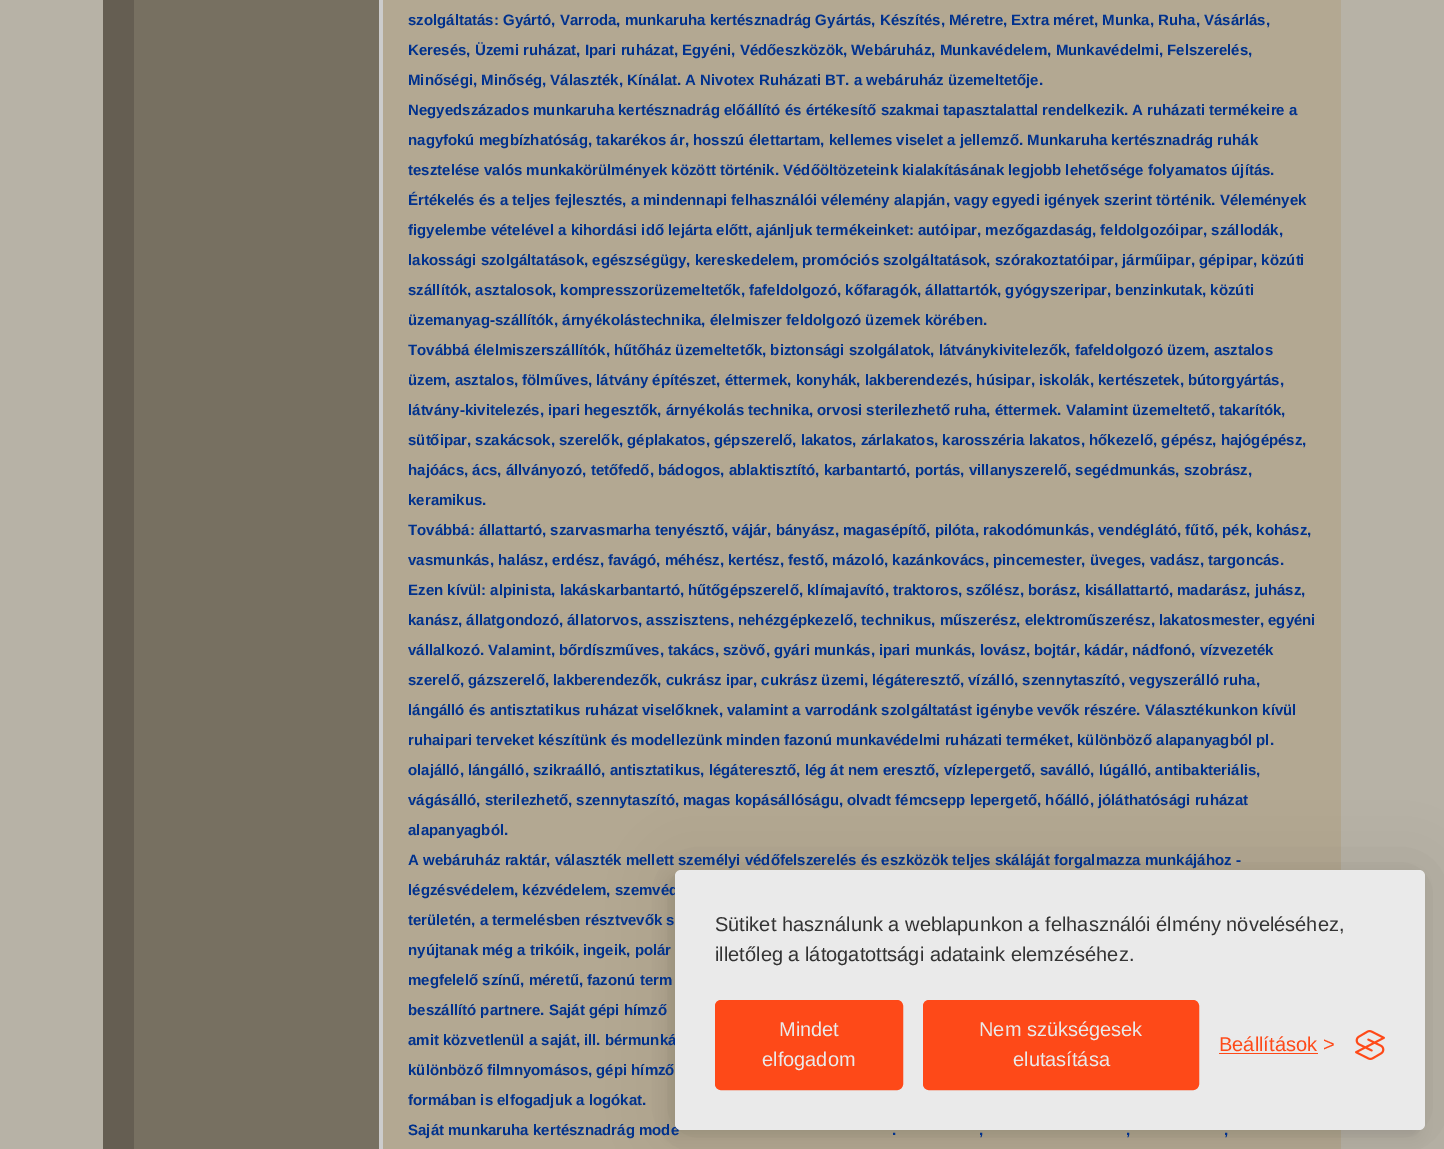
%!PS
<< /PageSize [1444 1149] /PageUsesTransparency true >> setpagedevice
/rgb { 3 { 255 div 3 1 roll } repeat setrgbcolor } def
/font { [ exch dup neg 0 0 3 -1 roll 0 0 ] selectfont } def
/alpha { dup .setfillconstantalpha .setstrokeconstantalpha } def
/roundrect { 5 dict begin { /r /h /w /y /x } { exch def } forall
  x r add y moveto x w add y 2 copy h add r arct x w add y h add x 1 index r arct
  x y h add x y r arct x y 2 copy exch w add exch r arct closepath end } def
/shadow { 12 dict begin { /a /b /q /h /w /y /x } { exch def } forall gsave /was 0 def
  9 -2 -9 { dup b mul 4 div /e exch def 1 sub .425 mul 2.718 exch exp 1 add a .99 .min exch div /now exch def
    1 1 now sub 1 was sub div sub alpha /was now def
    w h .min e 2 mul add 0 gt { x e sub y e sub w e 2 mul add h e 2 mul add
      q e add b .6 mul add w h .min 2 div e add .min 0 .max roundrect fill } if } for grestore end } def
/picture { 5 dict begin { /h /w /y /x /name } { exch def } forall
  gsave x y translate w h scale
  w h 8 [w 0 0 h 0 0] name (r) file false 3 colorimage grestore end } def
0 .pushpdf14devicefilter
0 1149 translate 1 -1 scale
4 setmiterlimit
183 178 166 rgb
0 0 1444 1149 rectfill
[
  [379 0 4 1149 204 204 204]
  [134 0 245 1149 119 112 97]
  [103 0 31 1149 101 94 82]
  [383 0 958 1149 179 168 146]
] { aload pop rgb rectfill } forall
0 0 0 rgb
675 870 750 260 6 31 0.1 shadow
669 876 750 260 6 6 0.07 shadow
/LiberationSans-Bold 15 font
0 49 141 rgb
[
  [(szolgáltatás: Gyártó, Varroda, munkaruha kertésznadrág Gyártás, Készítés, Méretre, Extra méret, Munka, Ruha, Vásárlás,) 408 25]
  [(Keresés, Üzemi ruházat, Ipari ruházat, Egyéni, Védőeszközök, Webáruház, Munkavédelem, Munkavédelmi, Felszerelés,) 408 55]
  [(Minőségi, Minőség, Választék, Kínálat. A Nivotex Ruházati BT. a webáruház üzemeltetője.) 408 85]
  [(Negyedszázados munkaruha kertésznadrág előállító és értékesítő szakmai tapasztalattal rendelkezik. A ruházati termékeire a) 408 115]
  [(nagyfokú megbízhatóság, takarékos ár, hosszú élettartam, kellemes viselet a jellemző. Munkaruha kertésznadrág ruhák) 408 145]
  [(tesztelése valós munkakörülmények között történik. Védőöltözeteink kialakításának legjobb lehetősége folyamatos újítás.) 408 175]
  [(Értékelés és a teljes fejlesztés, a mindennapi felhasználói vélemény alapján, vagy egyedi igények szerint történik. Vélemények) 408 205]
  [(figyelembe vételével a kihordási idő lejárta előtt, ajánljuk termékeinket: autóipar, mezőgazdaság, feldolgozóipar, szállodák,) 408 235]
  [(lakossági szolgáltatások, egészségügy, kereskedelem, promóciós szolgáltatások, szórakoztatóipar, járműipar, gépipar, közúti) 408 265]
  [(szállítók, asztalosok, kompresszorüzemeltetők, fafeldolgozó, kőfaragók, állattartók, gyógyszeripar, benzinkutak, közúti) 408 295]
  [(üzemanyag-szállítók, árnyékolástechnika, élelmiszer feldolgozó üzemek körében.) 408 325]
  [(Továbbá élelmiszerszállítók, hűtőház üzemeltetők, biztonsági szolgálatok, látványkivitelezők, fafeldolgozó üzem, asztalos) 408 355]
  [(üzem, asztalos, fölműves, látvány építészet, éttermek, konyhák, lakberendezés, húsipar, iskolák, kertészetek, bútorgyártás,) 408 385]
  [(látvány-kivitelezés, ipari hegesztők, árnyékolás technika, orvosi sterilezhető ruha, éttermek. Valamint üzemeltető, takarítók,) 408 415]
  [(sütőipar, szakácsok, szerelők, géplakatos, gépszerelő, lakatos, zárlakatos, karosszéria lakatos, hőkezelő, gépész, hajógépész,) 408 445]
  [(hajóács, ács, állványozó, tetőfedő, bádogos, ablaktisztító, karbantartó, portás, villanyszerelő, segédmunkás, szobrász,) 408 475]
  [(keramikus.) 408 505]
  [(Továbbá: állattartó, szarvasmarha tenyésztő, vájár, bányász, magasépítő, pilóta, rakodómunkás, vendéglátó, fűtő, pék, kohász,) 408 535]
  [(vasmunkás, halász, erdész, favágó, méhész, kertész, festő, mázoló, kazánkovács, pincemester, üveges, vadász, targoncás.) 408 565]
  [(Ezen kívül: alpinista, lakáskarbantartó, hűtőgépszerelő, klímajavító, traktoros, szőlész, borász, kisállattartó, madarász, juhász,) 408 595]
  [(kanász, állatgondozó, állatorvos, asszisztens, nehézgépkezelő, technikus, műszerész, elektroműszerész, lakatosmester, egyéni) 408 625]
  [(vállalkozó. Valamint, bőrdíszműves, takács, szövő, gyári munkás, ipari munkás, lovász, bojtár, kádár, nádfonó, vízvezeték) 408 655]
  [(szerelő, gázszerelő, lakberendezők, cukrász ipar, cukrász üzemi, légáteresztő, vízálló, szennytaszító, vegyszerálló ruha,) 408 685]
  [(lángálló és antisztatikus ruházat viselőknek, valamint a varrodánk szolgáltatást igénybe vevők részére. Választékunkon kívül) 408 715]
  [(ruhaipari terveket készítünk és modellezünk minden fazonú munkavédelmi ruházati terméket, különböző alapanyagból pl.) 408 745]
  [(olajálló, lángálló, szikraálló, antisztatikus, légáteresztő, lég át nem eresztő, vízlepergető, saválló, lúgálló, antibakteriális,) 408 775]
  [(vágásálló, sterilezhető, szennytaszító, magas kopásállóságu, olvadt fémcsepp lepergető, hőálló, jóláthatósági ruházat) 408 805]
  [(alapanyagból.) 408 835]
  [(A webáruház raktár, választék mellett személyi védőfelszerelés és eszközök teljes skáláját forgalmazza munkájához -) 408 865]
  [(légzésvédelem, kézvédelem, szemvéd) 408 895]
  [(területén, a termelésben résztvevők s) 408 925]
  [(nyújtanak még a trikóik, ingeik, polár) 408 955]
  [(megfelelő színű, méretű, fazonú term) 408 985]
  [(beszállító partnere. Saját gépi hímző) 408 1015]
  [(amit közvetlenül a saját, ill. bérmunká) 408 1045]
  [(különböző filmnyomásos, gépi hímző) 408 1075]
  [(formában is elfogadjuk a logókat.) 408 1105]
  [(Saját munkaruha kertésznadrág mode) 408 1135]
  [(.) 892 1135]
  [(,) 979 1135]
  [(,) 1126 1135]
  [(,) 1224 1135]
] { aload pop moveto show } forall
234 234 234 rgb
675 870 750 260 6 roundrect fill
/LiberationSans-Regular 20 font
51 51 51 rgb
715 931 moveto (Sütiket használunk a weblapunkon a felhasználói élmény növeléséhez,) show
715 961 moveto (illetőleg a látogatottsági adataink elemzéséhez.) show
254 73 24 rgb
716.5 1001.5 185 87 4.5 roundrect gsave fill grestore
3 setlinewidth
stroke
234 234 234 rgb
779 1036 moveto (Mindet) show
762 1066 moveto (elfogadom) show
254 73 24 rgb
924.5 1001.5 273 87 4.5 roundrect gsave fill grestore
stroke
234 234 234 rgb
979 1036 moveto (Nem szükségesek) show
1013 1066 moveto (elutasítása) show
254 73 24 rgb
1219 1051 moveto (Beállítások) show
1219 1053 99 1 rectfill
1323 1051 moveto (>) show
(img/1.rgb) 1355 1030 30 30 picture
.poppdf14devicefilter showpage
